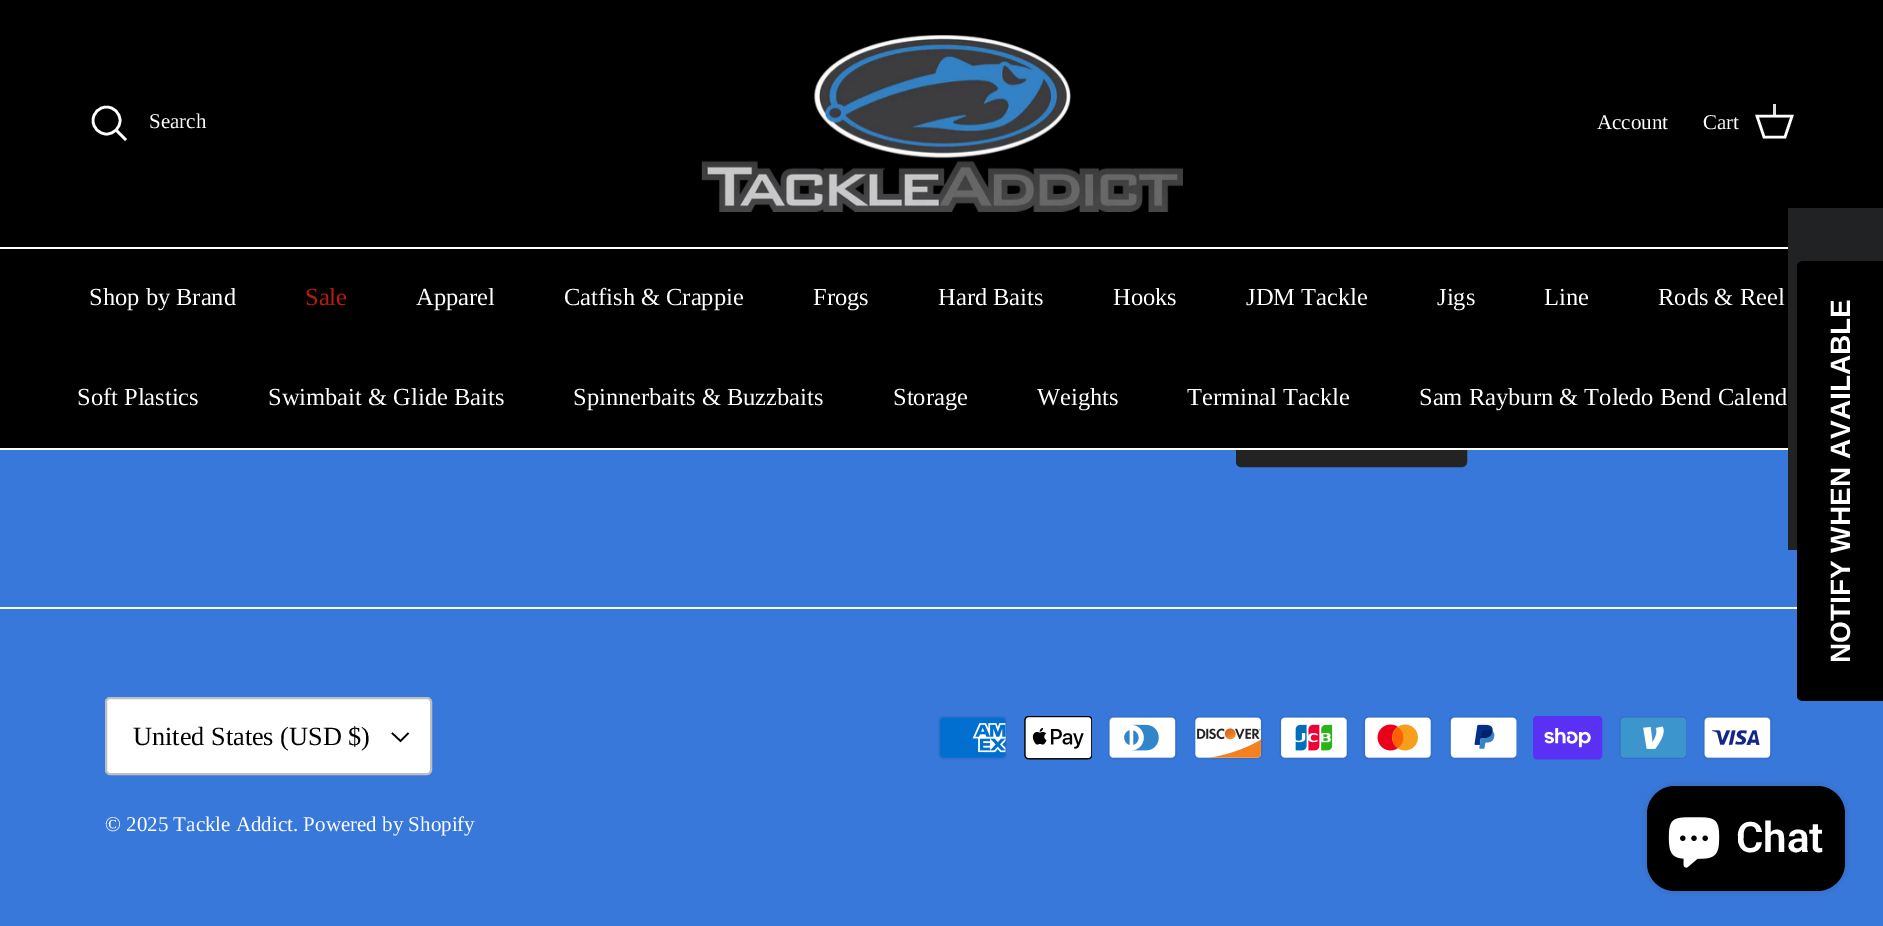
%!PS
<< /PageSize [1883 926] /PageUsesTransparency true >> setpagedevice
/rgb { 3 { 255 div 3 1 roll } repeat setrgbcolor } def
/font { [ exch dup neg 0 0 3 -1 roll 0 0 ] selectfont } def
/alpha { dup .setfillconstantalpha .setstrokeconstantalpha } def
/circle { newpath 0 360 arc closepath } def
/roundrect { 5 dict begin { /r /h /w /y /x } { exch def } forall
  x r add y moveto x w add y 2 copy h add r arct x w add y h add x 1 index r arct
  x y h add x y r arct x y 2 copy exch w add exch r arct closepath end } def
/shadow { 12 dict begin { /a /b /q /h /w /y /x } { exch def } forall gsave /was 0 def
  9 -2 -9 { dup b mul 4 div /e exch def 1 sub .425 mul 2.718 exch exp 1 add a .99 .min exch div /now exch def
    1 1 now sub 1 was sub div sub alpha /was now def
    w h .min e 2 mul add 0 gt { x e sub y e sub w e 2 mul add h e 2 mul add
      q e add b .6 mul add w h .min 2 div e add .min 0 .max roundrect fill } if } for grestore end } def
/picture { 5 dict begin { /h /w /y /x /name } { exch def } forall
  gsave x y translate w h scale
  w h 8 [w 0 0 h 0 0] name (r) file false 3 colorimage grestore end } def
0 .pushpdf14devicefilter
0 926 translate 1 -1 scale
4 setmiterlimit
57 120 219 rgb
0 0 1883 926 rectfill
0 0 0 rgb
0 0 1883 247 rectfill
255 255 255 rgb
0 247 1788 2 rectfill
2.6 setlinewidth
106.5 120.5 13.5 circle stroke
2 setlinecap
117 131 moveto 125 139 lineto stroke
(img/1.rgb) 701 35 482 177 picture
0 setlinecap
1757 116 moveto 1792 116 lineto 1785 137 lineto 1764 137 lineto closepath stroke
0.87 alpha
1773 104 3 13 rectfill
1 alpha
35 35 35 rgb
1237 388 229 78 4 roundrect gsave fill grestore
2 setlinewidth
stroke
[
  [0 448 1788 2 255 255 255]
  [0 249 1788 199 0 0 0]
  [1788 208 95 342 32 34 35]
] { aload pop rgb rectfill } forall
0 0 0 rgb
1799 696 moveto 1799 266 lineto 1799 264 1801 262 1803 262 curveto 1883 262 lineto 1883 699 lineto 1803 699 lineto 1801 699 1799 698 1799 696 curveto closepath fill
1797 696 moveto 1797 266 lineto 1797 263 1800 261 1803 261 curveto 1883 261 lineto 1883 701 lineto 1803 701 lineto 1800 701 1797 699 1797 696 curveto closepath 1799 696 moveto 1799 266 lineto 1799 264 1801 262 1803 262 curveto 1883 262 lineto 1883 699 lineto 1803 699 lineto 1801 699 1799 698 1799 696 curveto closepath eofill
255 255 255 rgb
0 607 1797 2 rectfill
106 698 325 76 4 roundrect gsave fill grestore
191 191 191 rgb
stroke
0 0 0 rgb
1.6 setlinewidth
408.5 733 moveto 400.5 741 lineto 392 733 lineto stroke
(img/2.rgb) 938 716 69 44 picture
(img/3.rgb) 1024 716 68 44 picture
(img/4.rgb) 1108 716 69 44 picture
(img/5.rgb) 1194 716 69 44 picture
(img/6.rgb) 1279 716 69 44 picture
(img/7.rgb) 1363 716 70 44 picture
(img/8.rgb) 1449 716 68 44 picture
(img/9.rgb) 1533 716 70 44 picture
(img/10.rgb) 1619 716 68 43 picture
(img/11.rgb) 1703 716 69 44 picture
1647 786 198 105 28 4.5 0.15 shadow
1647 786 198 105 28 roundrect fill
(img/12.rgb) 1668 817 52 51 picture
/LiberationSerif-Regular 21 font
255 255 255 rgb
[
  [(Search) 149 128]
  [(Account) 1597 129]
  [(Cart) 1703 129]
] { aload pop moveto show } forall
/LiberationSerif-Regular 24.5 font
89 305 moveto (Shop by Brand) show
182 29 15 rgb
305 305 moveto (Sale) show
255 255 255 rgb
[
  [(Apparel) 416 305]
  [(Catfish & Crappie) 564 305]
  [(Frogs) 813 305]
  [(Hard Baits) 938 305]
  [(Hooks) 1113 305]
  [(JDM Tackle) 1246 305]
  [(Jigs) 1437 305]
  [(Line) 1544 305]
  [(Rods & Reel) 1658 305]
  [(Soft Plastics) 77 405]
  [(Swimbait & Glide Baits) 268 405]
  [(Spinnerbaits & Buzzbaits) 573 405]
  [(Storage) 893 405]
  [(Weights) 1037 405]
  [(Terminal Tackle) 1187 405]
  [(Sam Rayburn & Toledo Bend Calend) 1419 405]
] { aload pop moveto show } forall
/LiberationSans-Bold 28 font
gsave 1850 663 translate -90 rotate 0 0 moveto (NOTIFY WHEN AVAILABLE) show grestore
/LiberationSerif-Regular 26.25 font
0 0 0 rgb
133 745 moveto (United States \(USD $\)) show
/LiberationSerif-Regular 21 font
255 255 255 rgb
105 831 moveto (© 2025 Tackle Addict. Powered by Shopify) show
/Roboto-SemiBold 42 font
1736 852 moveto (Chat) show
.poppdf14devicefilter showpage
